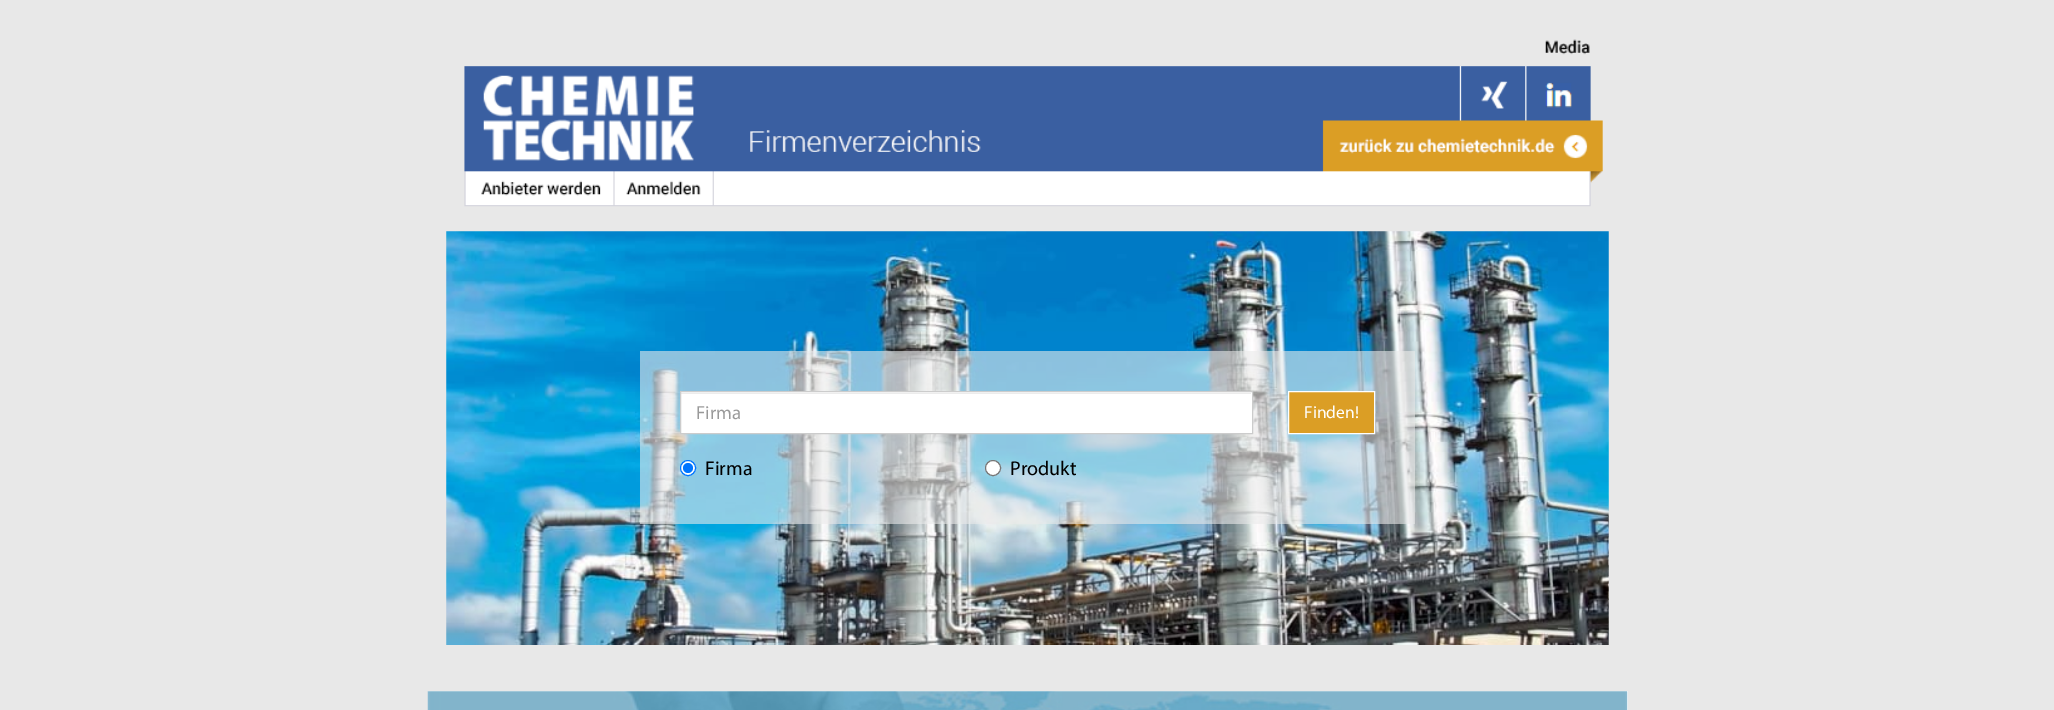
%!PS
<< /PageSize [2054 710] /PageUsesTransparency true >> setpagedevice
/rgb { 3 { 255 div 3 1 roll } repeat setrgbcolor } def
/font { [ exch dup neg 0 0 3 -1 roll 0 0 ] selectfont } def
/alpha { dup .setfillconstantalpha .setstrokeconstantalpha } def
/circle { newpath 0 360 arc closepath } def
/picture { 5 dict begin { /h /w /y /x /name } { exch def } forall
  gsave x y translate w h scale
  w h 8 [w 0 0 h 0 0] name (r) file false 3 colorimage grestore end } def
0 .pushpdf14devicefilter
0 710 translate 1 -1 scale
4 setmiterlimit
232 232 232 rgb
0 0 2054 710 rectfill
(img/1.rgb) 464 39 1139 168 picture
(img/2.rgb) 446 231 1163 414 picture
0.6 alpha
[
  [640 351 775 173 234 234 234]
] { aload pop rgb rectfill } forall
1 alpha
[
  [681 392 571 41 255 255 255]
  [681 393 570 1 236 236 236]
] { aload pop rgb rectfill } forall
204 204 204 rgb
680.5 391.5 572 42 rectstroke
219 158 37 rgb
1288.5 391.5 moveto 1374.5 391.5 lineto 1374.5 433.5 lineto 1288.5 433.5 lineto closepath gsave fill grestore
255 255 255 rgb
stroke
688 468 7.5 circle gsave fill grestore
0 117 255 rgb
stroke
688 468 5 circle fill
255 255 255 rgb
993 468 7.5 circle gsave fill grestore
118 118 118 rgb
stroke
255 255 255 rgb
428 691 1200 19 rectfill
(img/3.rgb) 427 691 1201 19 picture
/Myriad-Regular 19 font
153 153 153 rgb
696 419 moveto (Firma) show
/Myriad-Regular 17.5 font
255 255 255 rgb
1304 418 moveto (Finden!) show
/Myriad-Regular 20 font
0 0 0 rgb
705 475 moveto (Firma) show
1010 475 moveto (Produkt) show
.poppdf14devicefilter showpage
